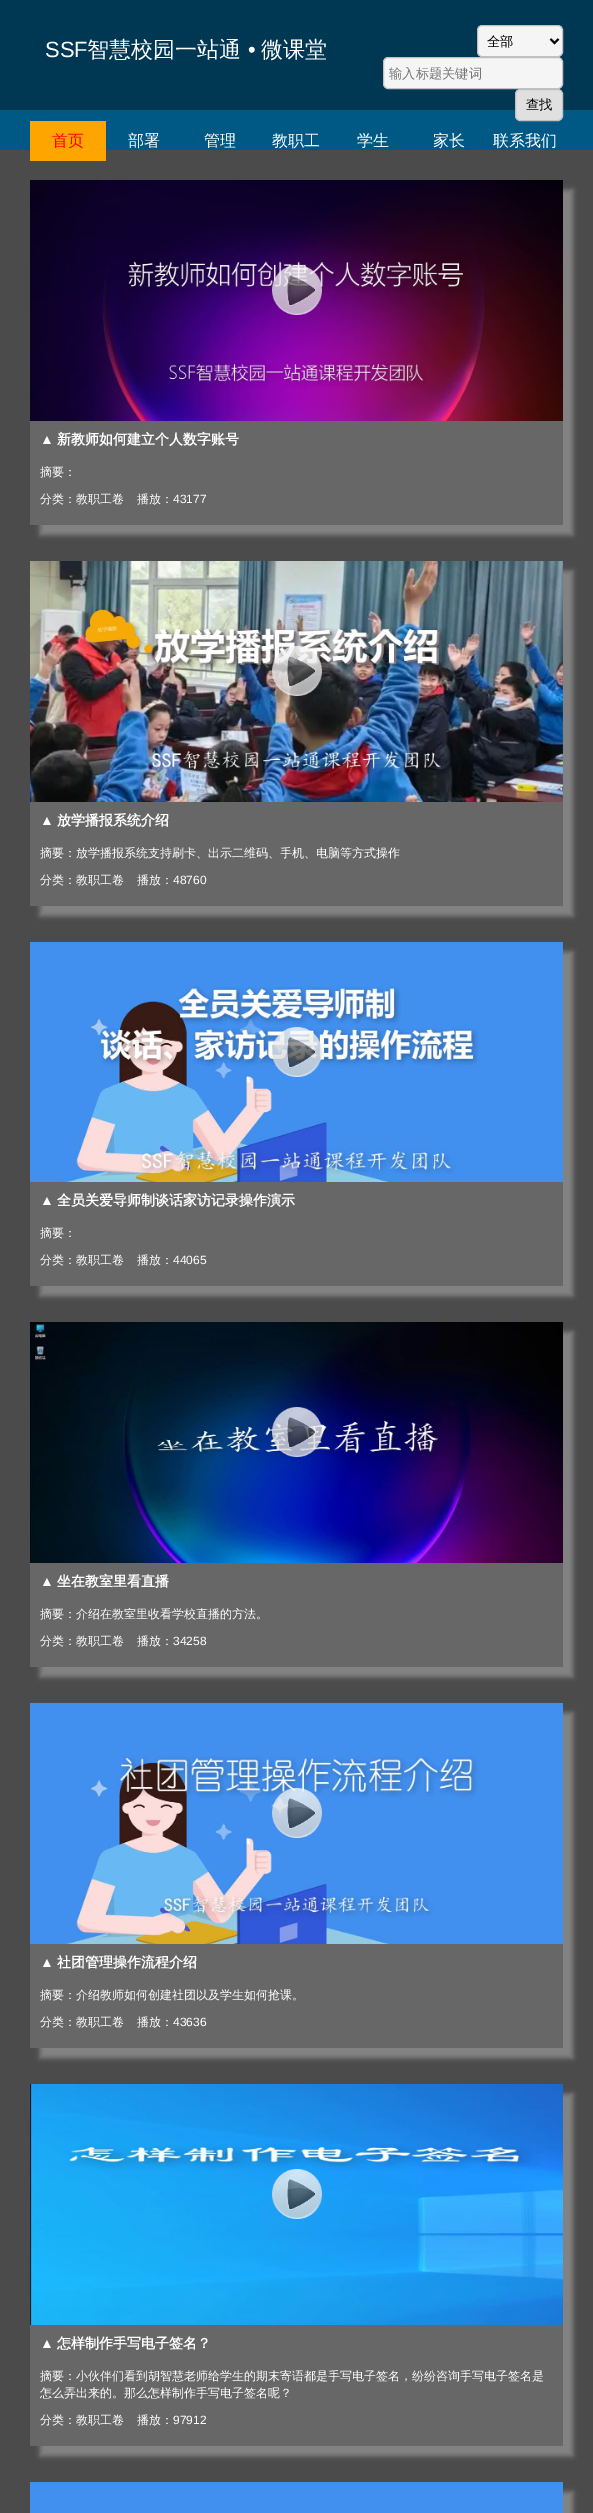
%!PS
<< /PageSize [593 2513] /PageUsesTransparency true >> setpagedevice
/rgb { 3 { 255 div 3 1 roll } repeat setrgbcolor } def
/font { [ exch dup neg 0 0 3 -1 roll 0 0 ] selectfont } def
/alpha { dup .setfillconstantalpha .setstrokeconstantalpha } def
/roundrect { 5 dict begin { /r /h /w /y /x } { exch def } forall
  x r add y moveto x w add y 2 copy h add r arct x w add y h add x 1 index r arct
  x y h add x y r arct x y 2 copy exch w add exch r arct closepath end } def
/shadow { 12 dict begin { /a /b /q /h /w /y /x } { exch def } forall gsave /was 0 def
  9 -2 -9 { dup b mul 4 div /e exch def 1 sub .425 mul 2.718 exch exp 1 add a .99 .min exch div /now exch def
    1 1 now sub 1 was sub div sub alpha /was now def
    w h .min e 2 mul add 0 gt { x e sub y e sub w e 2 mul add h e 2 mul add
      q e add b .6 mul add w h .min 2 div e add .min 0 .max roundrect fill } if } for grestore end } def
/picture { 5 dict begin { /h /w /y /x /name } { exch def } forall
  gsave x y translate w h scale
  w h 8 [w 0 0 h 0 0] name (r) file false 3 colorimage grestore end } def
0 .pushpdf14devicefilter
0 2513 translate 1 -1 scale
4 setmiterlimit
75 75 75 rgb
0 0 593 2513 rectfill
0 56 83 rgb
0 0 593 110 rectfill
245 245 245 rgb
477.5 25.5 85 31 4.5 roundrect gsave fill grestore
192 192 192 rgb
stroke
0 0 0 rgb
2 setlinewidth
550.5 39 moveto 554.5 43 lineto 558.5 39 lineto stroke
245 245 245 rgb
383.5 57.5 179 31 4.5 roundrect gsave fill grestore
192 192 192 rgb
1 setlinewidth
stroke
0 89 132 rgb
0 110 593 40 rectfill
224 224 224 rgb
515.5 89.5 47 31 4.5 roundrect gsave fill grestore
192 192 192 rgb
stroke
255 165 0 rgb
30 121 76 40 rectfill
132 132 132 rgb
40 190 533 345 0 2.5 1 shadow
103 103 103 rgb
30 421 533 104 rectfill
(img/1.rgb) 30 180 533 241 picture
(img/2.rgb) 272 265 50 50 picture
132 132 132 rgb
40 571 533 345 0 2.5 1 shadow
103 103 103 rgb
30 802 533 104 rectfill
(img/3.rgb) 30 561 533 241 picture
(img/4.rgb) 272 646 50 50 picture
132 132 132 rgb
40 952 533 344 0 2.5 1 shadow
103 103 103 rgb
30 1182 533 104 rectfill
(img/5.rgb) 30 942 533 240 picture
(img/6.rgb) 272 1027 50 50 picture
132 132 132 rgb
40 1332 533 345 0 2.5 1 shadow
103 103 103 rgb
30 1563 533 104 rectfill
(img/7.rgb) 30 1322 533 241 picture
(img/8.rgb) 272 1407 50 50 picture
132 132 132 rgb
40 1713 533 345 0 2.5 1 shadow
103 103 103 rgb
30 1944 533 104 rectfill
(img/9.rgb) 30 1703 533 241 picture
(img/10.rgb) 272 1788 50 50 picture
132 132 132 rgb
40 2094 533 362 0 2.5 1 shadow
103 103 103 rgb
30 2325 533 121 rectfill
(img/11.rgb) 30 2084 533 241 picture
(img/12.rgb) 272 2169 50 50 picture
132 132 132 rgb
40 2492 533 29 0 2.5 1 shadow
65 144 239 rgb
30 2482 533 31 rectfill
/LiberationSans-Regular 22 font
255 255 255 rgb
45 57 moveto (SSF) show
/WenQuanYiZenHei-Medium 22 font
87 57 moveto (智慧校园一站通) show
/LiberationSans-Regular 22 font
248 57 moveto (•) show
/WenQuanYiZenHei-Medium 22 font
261 57 moveto (微课堂) show
/WenQuanYiZenHei-Medium 13.25 font
0 0 0 rgb
487 46 moveto (全部) show
117 117 117 rgb
389 78 moveto (输入标题关键词) show
0 0 0 rgb
526 109 moveto (查找) show
/WenQuanYiZenHei-Medium 16 font
255 0 0 rgb
52 146 moveto (首页) show
255 255 255 rgb
[
  [(部署) 128 146]
  [(管理) 204 146]
  [(教职工) 272 146]
  [(学生) 357 146]
  [(家长) 433 146]
  [(联系我们) 493 146]
] { aload pop moveto show } forall
/LiberationSans-Bold 14 font
40 444 moveto (▲) show
/WenQuanYiZenHei-Bold 14 font
57 444 moveto (新教师如何建立个人数字账号) show
/WenQuanYiZenHei-Medium 12 font
[
  [(摘要：) 40 476]
  [(分类：教职工卷) 40 503]
  [(播放：) 137 503]
] { aload pop moveto show } forall
/LiberationSans-Regular 12 font
173 503 moveto (43177) show
/LiberationSans-Bold 14 font
40 825 moveto (▲) show
/WenQuanYiZenHei-Bold 14 font
57 825 moveto (放学播报系统介绍) show
/WenQuanYiZenHei-Medium 12 font
[
  [(摘要：放学播报系统支持刷卡、出示二维码、手机、电脑等方式操作) 40 857]
  [(分类：教职工卷) 40 884]
  [(播放：) 137 884]
] { aload pop moveto show } forall
/LiberationSans-Regular 12 font
173 884 moveto (48760) show
/LiberationSans-Bold 14 font
40 1205 moveto (▲) show
/WenQuanYiZenHei-Bold 14 font
57 1205 moveto (全员关爱导师制谈话家访记录操作演示) show
/WenQuanYiZenHei-Medium 12 font
[
  [(摘要：) 40 1237]
  [(分类：教职工卷) 40 1264]
  [(播放：) 137 1264]
] { aload pop moveto show } forall
/LiberationSans-Regular 12 font
173 1264 moveto (44065) show
/LiberationSans-Bold 14 font
40 1586 moveto (▲) show
/WenQuanYiZenHei-Bold 14 font
57 1586 moveto (坐在教室里看直播) show
/WenQuanYiZenHei-Medium 12 font
[
  [(摘要：介绍在教室里收看学校直播的方法。) 40 1618]
  [(分类：教职工卷) 40 1645]
  [(播放：) 137 1645]
] { aload pop moveto show } forall
/LiberationSans-Regular 12 font
173 1645 moveto (34258) show
/LiberationSans-Bold 14 font
40 1967 moveto (▲) show
/WenQuanYiZenHei-Bold 14 font
57 1967 moveto (社团管理操作流程介绍) show
/WenQuanYiZenHei-Medium 12 font
[
  [(摘要：介绍教师如何创建社团以及学生如何抢课。) 40 1999]
  [(分类：教职工卷) 40 2026]
  [(播放：) 137 2026]
] { aload pop moveto show } forall
/LiberationSans-Regular 12 font
173 2026 moveto (43636) show
/LiberationSans-Bold 14 font
40 2348 moveto (▲) show
/WenQuanYiZenHei-Bold 14 font
57 2348 moveto (怎样制作手写电子签名？) show
/WenQuanYiZenHei-Medium 12 font
[
  [(摘要：小伙伴们看到胡智慧老师给学生的期末寄语都是手写电子签名，纷纷咨询手写电子签名是) 40 2380]
  [(怎么弄出来的。那么怎样制作手写电子签名呢？) 40 2397]
  [(分类：教职工卷) 40 2424]
  [(播放：) 137 2424]
] { aload pop moveto show } forall
/LiberationSans-Regular 12 font
173 2424 moveto (97912) show
.poppdf14devicefilter showpage
